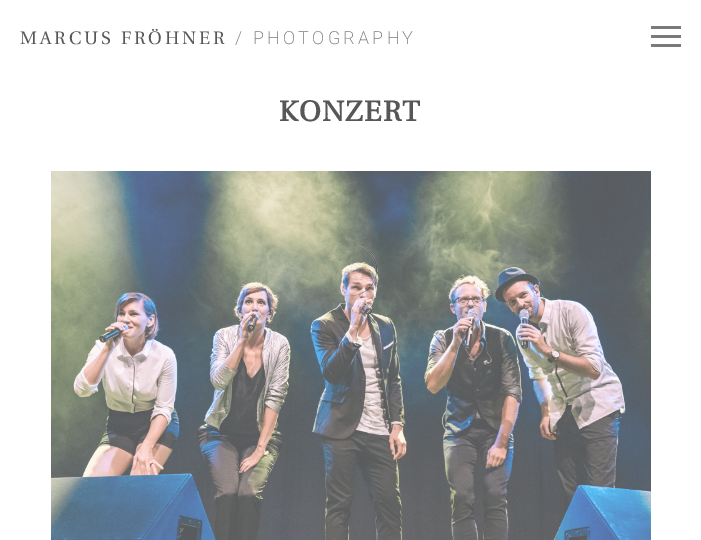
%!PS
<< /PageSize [701 540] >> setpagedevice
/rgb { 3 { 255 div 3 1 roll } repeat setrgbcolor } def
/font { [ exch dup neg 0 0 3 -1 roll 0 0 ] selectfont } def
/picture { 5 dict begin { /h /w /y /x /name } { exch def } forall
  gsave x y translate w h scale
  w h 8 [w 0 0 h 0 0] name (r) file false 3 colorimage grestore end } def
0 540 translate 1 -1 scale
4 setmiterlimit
255 255 255 rgb
0 0 701 540 rectfill
[
  [651 35 30 3 122 122 122]
  [651 26 30 3 122 122 122]
  [651 44 30 3 122 122 122]
] { aload pop rgb rectfill } forall
(img/1.rgb) 51 171 600 369 picture
(img/2.rgb) 343 245 35 51 picture
/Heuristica-Regular 18 font
87 87 87 rgb
20 44 moveto 2.9 0 (MARCUS FRÖHNER) ashow
/Heebo-ExtraLight 18 font
122 122 122 rgb
235 44 moveto 3.25 0 (/ PHOTOGRAPHY) ashow
/Heuristica-Bold 28.5 font
87 87 87 rgb
279 121 moveto 1.25 0 (KONZERT) ashow
showpage
